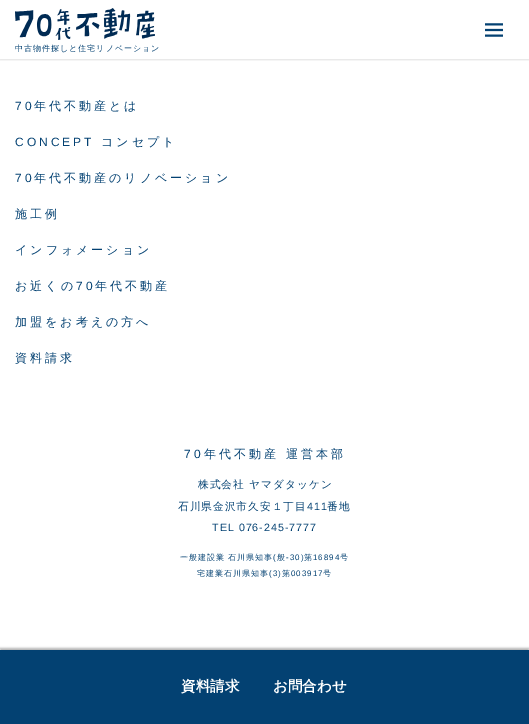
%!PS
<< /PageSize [529 724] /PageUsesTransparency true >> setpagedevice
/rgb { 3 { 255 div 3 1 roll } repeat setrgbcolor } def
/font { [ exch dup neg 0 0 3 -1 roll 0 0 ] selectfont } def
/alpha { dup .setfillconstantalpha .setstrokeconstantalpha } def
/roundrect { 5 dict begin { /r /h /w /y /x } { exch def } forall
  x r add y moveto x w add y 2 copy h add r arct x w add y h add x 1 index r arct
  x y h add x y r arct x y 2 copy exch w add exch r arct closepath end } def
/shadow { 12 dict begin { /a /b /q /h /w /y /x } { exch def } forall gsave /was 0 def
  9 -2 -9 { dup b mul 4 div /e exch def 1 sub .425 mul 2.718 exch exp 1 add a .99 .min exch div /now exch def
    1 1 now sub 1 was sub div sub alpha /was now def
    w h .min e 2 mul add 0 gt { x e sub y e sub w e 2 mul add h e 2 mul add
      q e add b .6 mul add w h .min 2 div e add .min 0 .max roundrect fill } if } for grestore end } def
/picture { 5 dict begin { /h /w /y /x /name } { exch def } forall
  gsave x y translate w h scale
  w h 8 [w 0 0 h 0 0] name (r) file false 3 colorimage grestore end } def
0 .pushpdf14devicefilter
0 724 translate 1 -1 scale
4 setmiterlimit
255 255 255 rgb
0 0 529 724 rectfill
gsave
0 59 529 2 rectclip
0 0 0 rgb
0 0 529 59 0 1.5 0.2 shadow
grestore
(img/1.rgb) 485 23 18 14 picture
(img/2.rgb) 15 8 140 32 picture
0 0 0 rgb
0 648 529 74 0 1 0.3 shadow
3 65 114 rgb
0 650 529 74 rectfill
/WenQuanYiZenHei-Medium 8 font
15 51 moveto 1 0 (中古物件探しと住宅リノベーション) ashow
/LiberationSans-Regular 12 font
15 110 moveto 3 0 (70) ashow
/WenQuanYiZenHei-Medium 12 font
34 110 moveto 3 0 (年代不動産とは) ashow
/LiberationSans-Regular 12 font
15 146 moveto 3 0 (CONCEPT) ashow
/WenQuanYiZenHei-Medium 12 font
101 146 moveto 3 0 (コンセプト) ashow
/LiberationSans-Regular 12 font
15 182 moveto 3 0 (70) ashow
/WenQuanYiZenHei-Medium 12 font
34 182 moveto 3 0 (年代不動産のリノベーション) ashow
15 218 moveto 3 0 (施工例) ashow
15 254 moveto 3 0 (インフォメーション) ashow
15 290 moveto 3 0 (お近くの) ashow
/LiberationSans-Regular 12 font
76 290 moveto 3 0 (70) ashow
/WenQuanYiZenHei-Medium 12 font
95 290 moveto 3 0 (年代不動産) ashow
15 326 moveto 3 0 (加盟をお考えの方へ) ashow
15 362 moveto 3 0 (資料請求) ashow
/LiberationSans-Regular 12 font
184 458 moveto 3 0 (70) ashow
/WenQuanYiZenHei-Medium 12 font
204 458 moveto 3 0 (年代不動産 運営本部) ashow
/WenQuanYiZenHei-Medium 10.7 font
198 488 moveto 1 0 (株式会社 ヤマダタッケン) ashow
178 510 moveto 1 0 (石川県金沢市久安１丁目) ashow
/LiberationSans-Regular 10.7 font
307 510 moveto 1 0 (411) ashow
/WenQuanYiZenHei-Medium 10.7 font
327 510 moveto 1 0 (番地) ashow
/LiberationSans-Regular 10.7 font
212 531 moveto 1 0 (TEL 076-245-7777) ashow
/WenQuanYiZenHei-Medium 8 font
180 560 moveto 1 0 (一般建設業 石川県知事) ashow
/LiberationSans-Regular 8 font
273 560 moveto 1 0 (\() ashow
/WenQuanYiZenHei-Medium 8 font
277 560 moveto 1 0 (般) ashow
/LiberationSans-Regular 8 font
286 560 moveto 1 0 (-30\)) ashow
/WenQuanYiZenHei-Medium 8 font
304 560 moveto 1 0 (第) ashow
/LiberationSans-Regular 8 font
313 560 moveto 1 0 (16894) ashow
/WenQuanYiZenHei-Medium 8 font
340 560 moveto 1 0 (号) ashow
197 576 moveto 1 0 (宅建業石川県知事) ashow
/LiberationSans-Regular 8 font
269 576 moveto 1 0 (\(3\)) ashow
/WenQuanYiZenHei-Medium 8 font
282 576 moveto 1 0 (第) ashow
/LiberationSans-Regular 8 font
291 576 moveto 1 0 (003917) ashow
/WenQuanYiZenHei-Medium 8 font
323 576 moveto 1 0 (号) ashow
/WenQuanYiZenHei-Bold 14.5 font
255 255 255 rgb
181 691 moveto (資料請求) show
273 691 moveto (お問合わせ) show
.poppdf14devicefilter showpage
